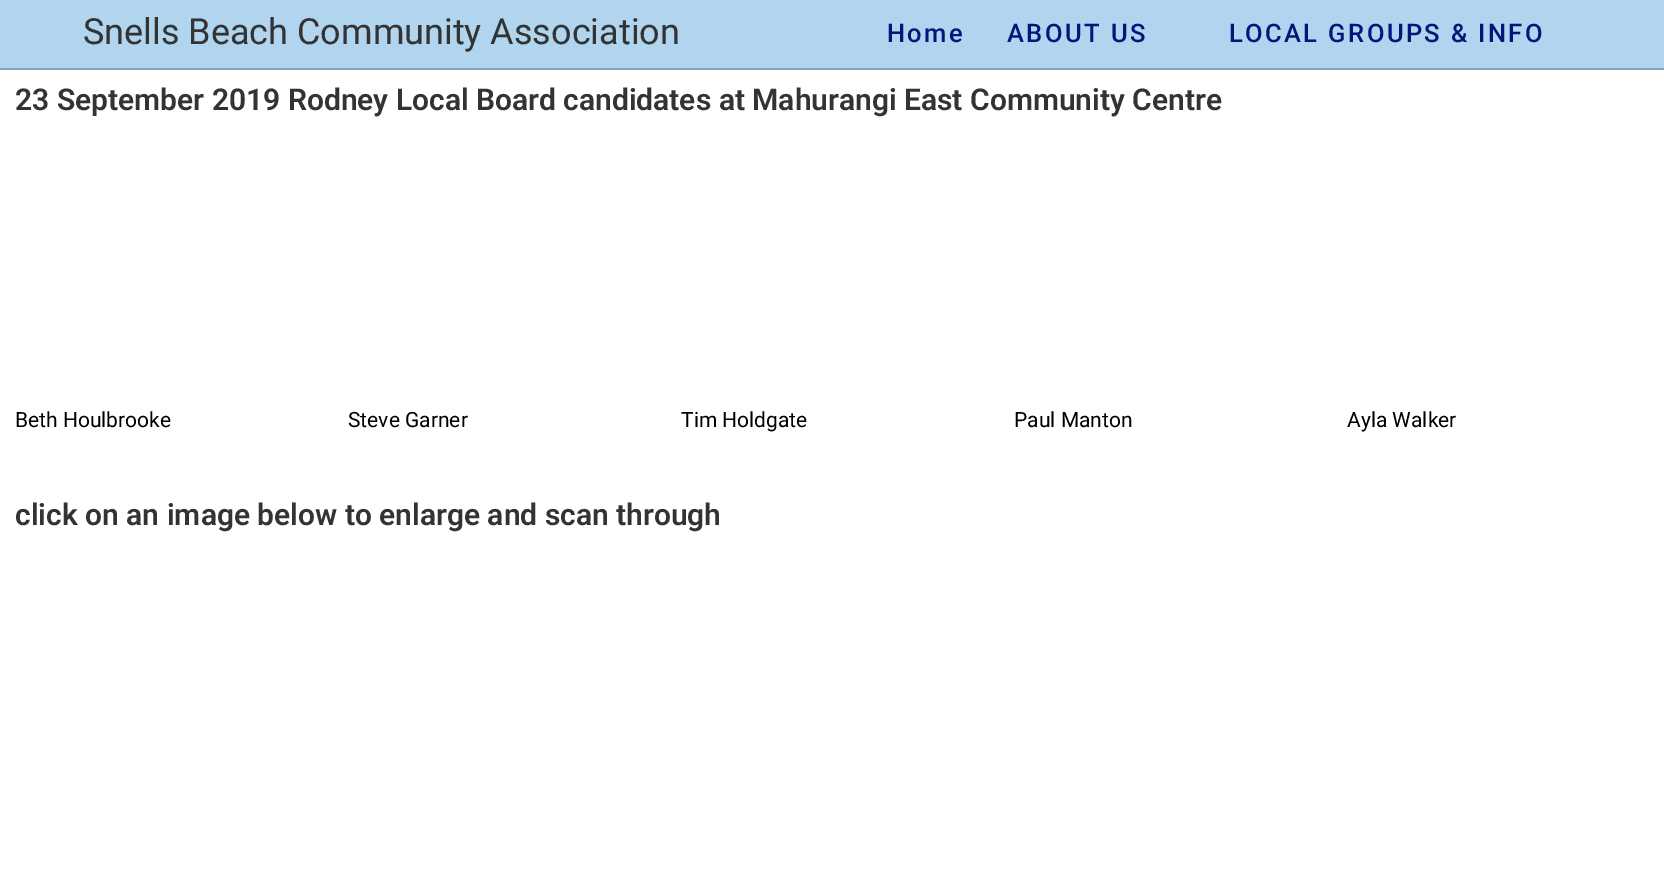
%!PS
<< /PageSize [1664 878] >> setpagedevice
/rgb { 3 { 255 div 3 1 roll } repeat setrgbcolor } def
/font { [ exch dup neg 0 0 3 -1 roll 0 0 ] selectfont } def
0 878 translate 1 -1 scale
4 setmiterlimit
255 255 255 rgb
0 0 1664 878 rectfill
177 212 239 rgb
0 0 1664 68 rectfill
135 163 191 rgb
0 68 1664 2 rectfill
/Roboto-Regular 36 font
51 51 51 rgb
83 44 moveto (Snells Beach Community Association) show
/Roboto-Medium 25.5 font
3 23 122 rgb
887 42 moveto 2.4 0 (Home) ashow
1007 42 moveto 2.4 0 (ABOUT US) ashow
1229 42 moveto 2.4 0 (LOCAL GROUPS & INFO) ashow
/Roboto-SemiBold 30 font
51 51 51 rgb
15 110 moveto (23 September 2019 Rodney Local Board candidates at Mahurangi East Community Centre) show
/Roboto-Regular 21 font
0 0 0 rgb
[
  [(Beth Houlbrooke) 15 427]
  [(Steve Garner) 348 427]
  [(Tim Holdgate) 681 427]
  [(Paul Manton) 1014 427]
  [(Ayla Walker) 1347 427]
] { aload pop moveto show } forall
/Roboto-SemiBold 30 font
51 51 51 rgb
15 525 moveto (click on an image below to enlarge and scan through) show
showpage
